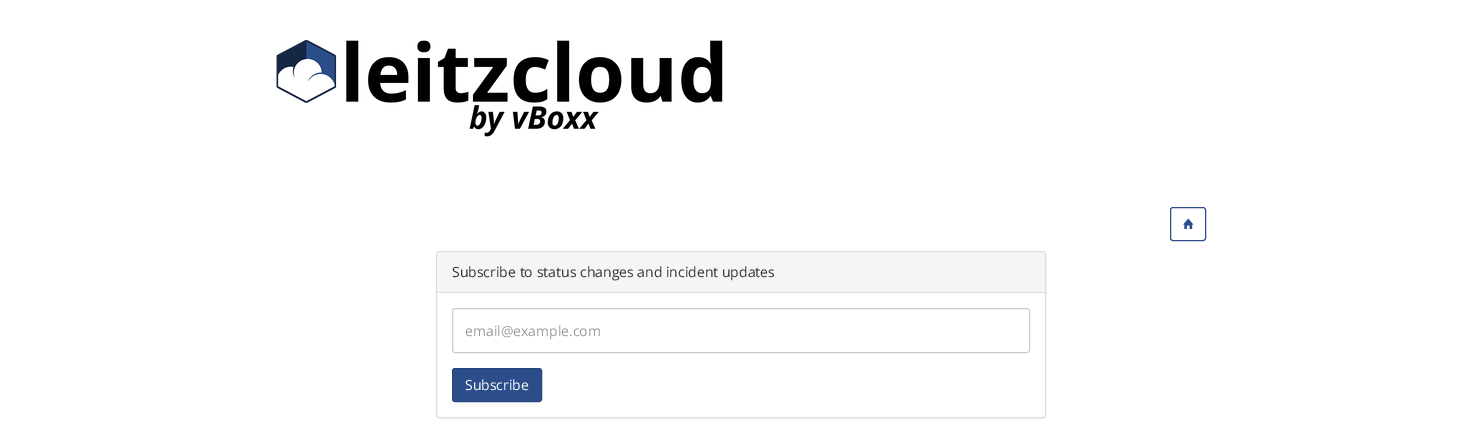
%!PS
<< /PageSize [1482 425] /PageUsesTransparency true >> setpagedevice
/rgb { 3 { 255 div 3 1 roll } repeat setrgbcolor } def
/font { [ exch dup neg 0 0 3 -1 roll 0 0 ] selectfont } def
/alpha { dup .setfillconstantalpha .setstrokeconstantalpha } def
/roundrect { 5 dict begin { /r /h /w /y /x } { exch def } forall
  x r add y moveto x w add y 2 copy h add r arct x w add y h add x 1 index r arct
  x y h add x y r arct x y 2 copy exch w add exch r arct closepath end } def
/shadow { 12 dict begin { /a /b /q /h /w /y /x } { exch def } forall gsave /was 0 def
  9 -2 -9 { dup b mul 4 div /e exch def 1 sub .425 mul 2.718 exch exp 1 add a .99 .min exch div /now exch def
    1 1 now sub 1 was sub div sub alpha /was now def
    w h .min e 2 mul add 0 gt { x e sub y e sub w e 2 mul add h e 2 mul add
      q e add b .6 mul add w h .min 2 div e add .min 0 .max roundrect fill } if } for grestore end } def
/picture { 5 dict begin { /h /w /y /x /name } { exch def } forall
  gsave x y translate w h scale
  w h 8 [w 0 0 h 0 0] name (r) file false 3 colorimage grestore end } def
0 .pushpdf14devicefilter
0 425 translate 1 -1 scale
4 setmiterlimit
255 255 255 rgb
0 0 1482 425 rectfill
(img/1.rgb) 276 40 447 97 picture
43 77 138 rgb
1170.5 207.5 35 33 2.5 roundrect stroke
(img/2.rgb) 1183 218 11 11 picture
0 0 0 rgb
436 252 610 167 3 0.5 0.05 shadow
255 255 255 rgb
436.5 251.5 609 166 2.5 roundrect gsave fill grestore
221 221 221 rgb
stroke
245 245 245 rgb
439 252 moveto 1043 252 lineto 1044 252 1045 253 1045 254 curveto 1045 293 lineto 437 293 lineto 437 254 lineto 437 253 438 252 439 252 curveto closepath fill
221 221 221 rgb
437 292 608 1 rectfill
204 204 204 rgb
452.5 308.5 577 44 2.5 roundrect stroke
43 77 138 rgb
452.5 368.5 89 33 2.5 roundrect gsave fill grestore
38 69 124 rgb
stroke
/OpenSans-Regular 14 font
51 51 51 rgb
452 277 moveto (Subscribe to status changes and incident updates) show
153 153 153 rgb
465 336 moveto (email@example.com) show
255 255 255 rgb
465 390 moveto (Subscribe) show
.poppdf14devicefilter showpage
